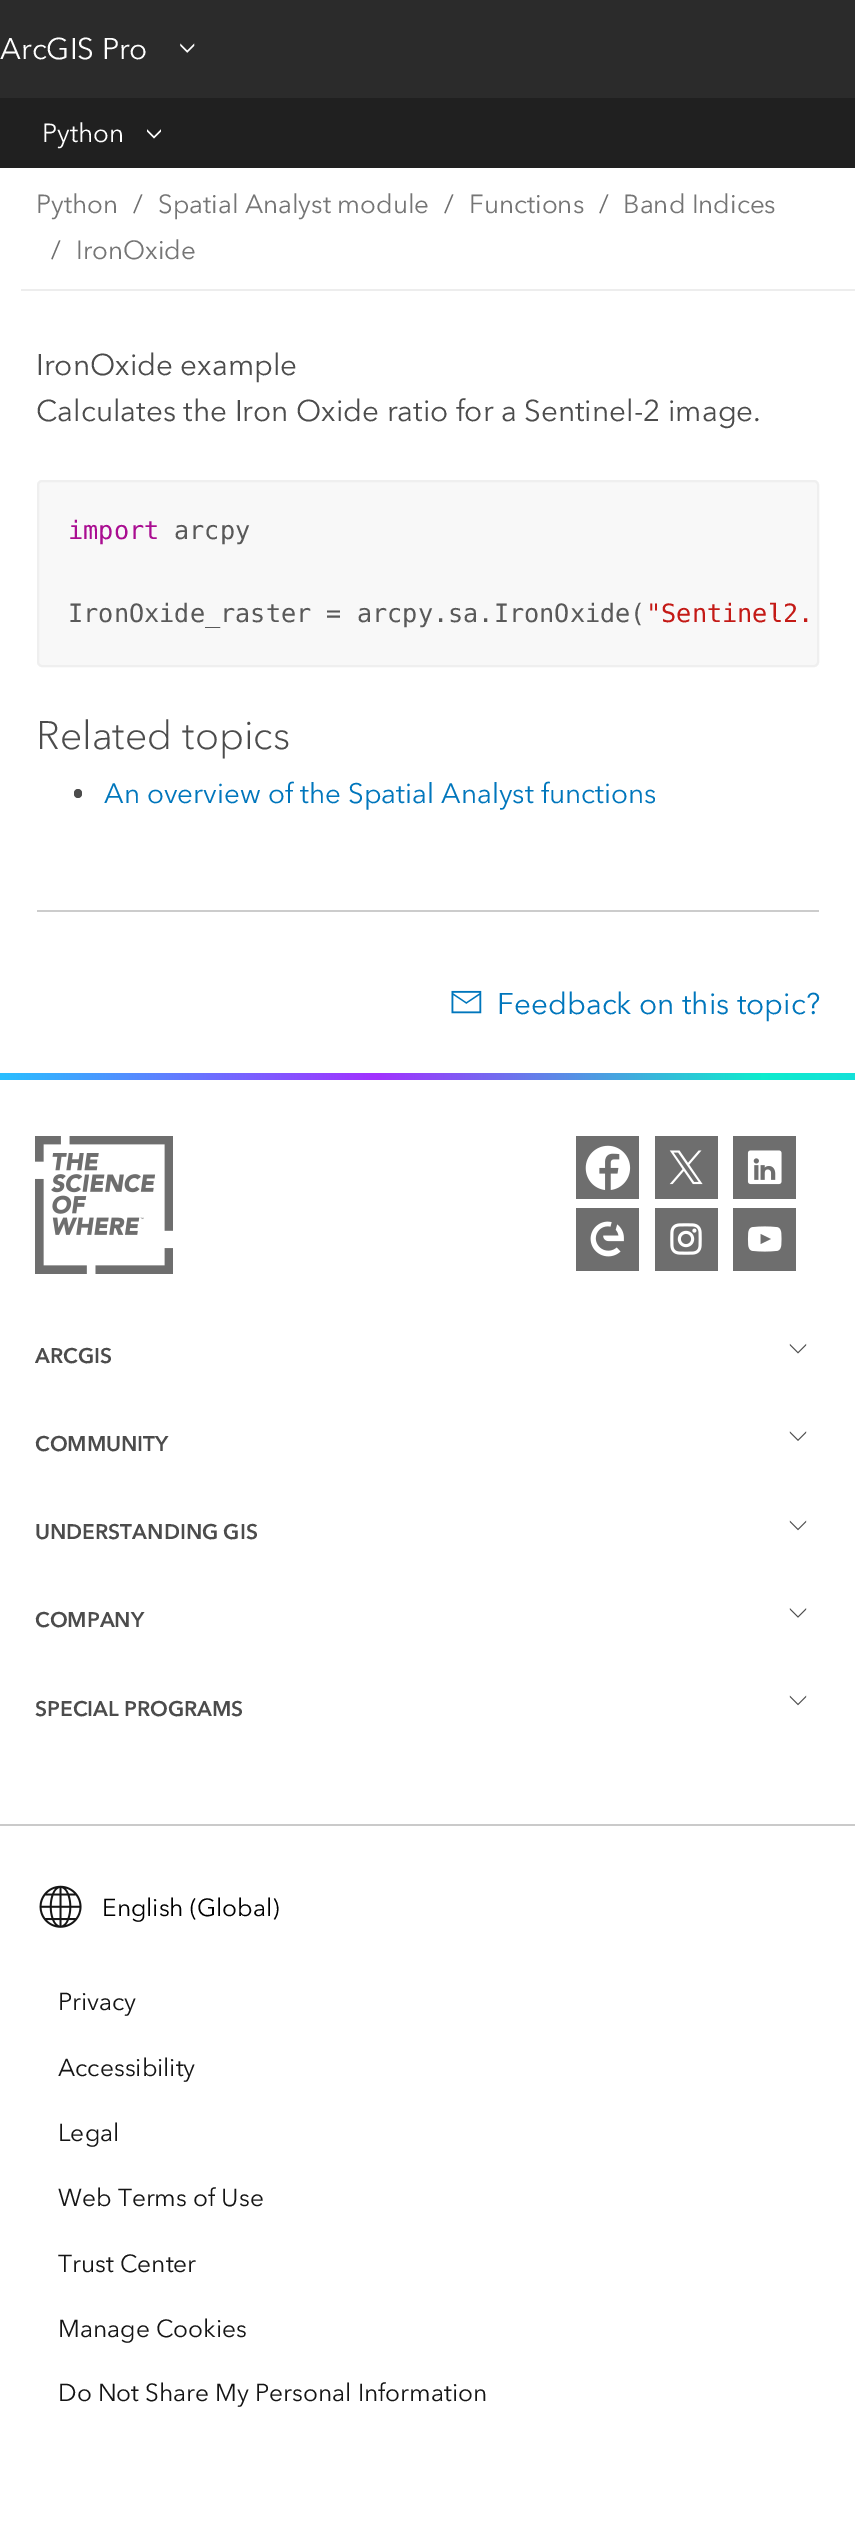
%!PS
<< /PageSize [855 2538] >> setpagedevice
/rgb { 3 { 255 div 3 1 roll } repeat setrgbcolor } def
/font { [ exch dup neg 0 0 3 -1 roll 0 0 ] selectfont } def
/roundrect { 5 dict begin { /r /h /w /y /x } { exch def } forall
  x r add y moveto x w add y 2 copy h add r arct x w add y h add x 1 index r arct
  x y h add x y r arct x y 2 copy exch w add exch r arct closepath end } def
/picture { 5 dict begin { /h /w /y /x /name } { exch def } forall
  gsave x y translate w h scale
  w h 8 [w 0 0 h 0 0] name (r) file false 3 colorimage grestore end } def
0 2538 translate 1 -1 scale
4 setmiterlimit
255 255 255 rgb
0 0 855 2538 rectfill
43 43 43 rgb
0 0 855 98 rectfill
(img/1.rgb) 180 43 15 10 picture
32 32 32 rgb
0 98 855 70 rectfill
(img/2.rgb) 147 129 14 10 picture
237 237 237 rgb
21 289 834 2 rectfill
248 248 248 rgb
38 481 780 185 4 roundrect gsave fill grestore
239 239 239 rgb
2 setlinewidth
stroke
76 76 76 rgb
74 789 8 9 4 roundrect fill
204 204 204 rgb
37 910 782 2 rectfill
(img/3.rgb) 451 990 31 24 picture
gsave 0 1073 moveto 855 1073 lineto 855 1080 lineto 0 1080 lineto closepath clip newpath
<< /ShadingType 2 /ColorSpace /DeviceRGB /Coords [0 1076 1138 1076] /Extend [true true] /Function << /FunctionType 3 /Domain [0 1] /Functions [<< /FunctionType 2 /Domain [0 1] /C0 [0.161 0.749 1] /C1 [0.635 0.192 1] /N 1 >> << /FunctionType 2 /Domain [0 1] /C0 [0.635 0.192 1] /C1 [0.051 0.925 0.804] /N 1 >> << /FunctionType 2 /Domain [0 1] /C0 [0.051 0.925 0.804] /C1 [0.161 0.749 1] /N 1 >>] /Bounds [0.33 0.67] /Encode [0 1 0 1 0 1] >> >> shfill grestore
(img/4.rgb) 35 1136 138 138 picture
110 110 110 rgb
576 1136 63 63 rectfill
(img/5.rgb) 585 1145 46 45 picture
655 1136 63 63 rectfill
(img/6.rgb) 669 1150 34 35 picture
733 1136 63 63 rectfill
(img/7.rgb) 747 1150 35 35 picture
576 1208 63 63 rectfill
(img/8.rgb) 590 1221 34 36 picture
655 1208 63 63 rectfill
(img/9.rgb) 670 1223 32 32 picture
733 1208 63 63 rectfill
(img/10.rgb) 747 1226 35 26 picture
(img/11.rgb) 789 1343 18 11 picture
(img/12.rgb) 789 1431 18 10 picture
(img/13.rgb) 789 1520 18 11 picture
(img/14.rgb) 789 1608 18 10 picture
(img/13.rgb) 789 1695 18 11 picture
202 202 202 rgb
0 1824 855 2 rectfill
(img/15.rgb) 39 1885 43 43 picture
/AvenirNext-Regular 29.75 font
255 255 255 rgb
0 59 moveto (ArcGIS Pro) show
/AvenirNext-Regular 26 font
42 142 moveto (Python) show
117 117 117 rgb
36 213 moveto (Python) show
110 110 110 rgb
133 213 moveto (/) show
117 117 117 rgb
158 213 moveto (Spatial Analyst module) show
110 110 110 rgb
444 213 moveto (/) show
117 117 117 rgb
469 213 moveto (Functions) show
110 110 110 rgb
599 213 moveto (/) show
117 117 117 rgb
623 213 moveto (Band Indices) show
110 110 110 rgb
51 259 moveto (/) show
117 117 117 rgb
76 259 moveto (IronOxide) show
/AvenirNext-Regular 29.75 font
76 76 76 rgb
36 375 moveto (IronOxide example) show
36 421 moveto (Calculates the Iron Oxide ratio for a Sentinel-2 image.) show
/DejaVuSansMono-Regular 25.25 font
170 13 145 rgb
68 539 moveto (import) show
89 89 89 rgb
174 539 moveto (arcpy) show
68 622 moveto (IronOxide_raster = arcpy.sa.IronOxide\() show
196 26 22 rgb
646 622 moveto ("Sentinel2.) show
/AvenirNext-Light 39.5 font
76 76 76 rgb
36 749 moveto (Related topics) show
/AvenirNext-Regular 27.9 font
0 118 188 rgb
104 803 moveto (An overview of the Spatial Analyst functions) show
/AvenirNext-Regular 29.75 font
497 1014 moveto (Feedback on this topic?) show
/AvenirNext-Bold 21 font
76 76 76 rgb
[
  [(ARCGIS) 35 1363]
  [(COMMUNITY) 35 1451]
  [(UNDERSTANDING GIS) 35 1539]
  [(COMPANY) 35 1627]
  [(SPECIAL PROGRAMS) 35 1716]
] { aload pop moveto show } forall
/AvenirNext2-Regular 24.5 font
0 0 0 rgb
102 1916 moveto (English \(Global\)) show
21 21 21 rgb
[
  [(Privacy) 58 2010]
  [(Accessibility) 58 2076]
  [(Legal) 58 2141]
  [(Web Terms of Use) 58 2206]
  [(Trust Center) 58 2272]
  [(Manage Cookies) 58 2337]
  [(Do Not Share My Personal Information) 58 2401]
] { aload pop moveto show } forall
showpage
